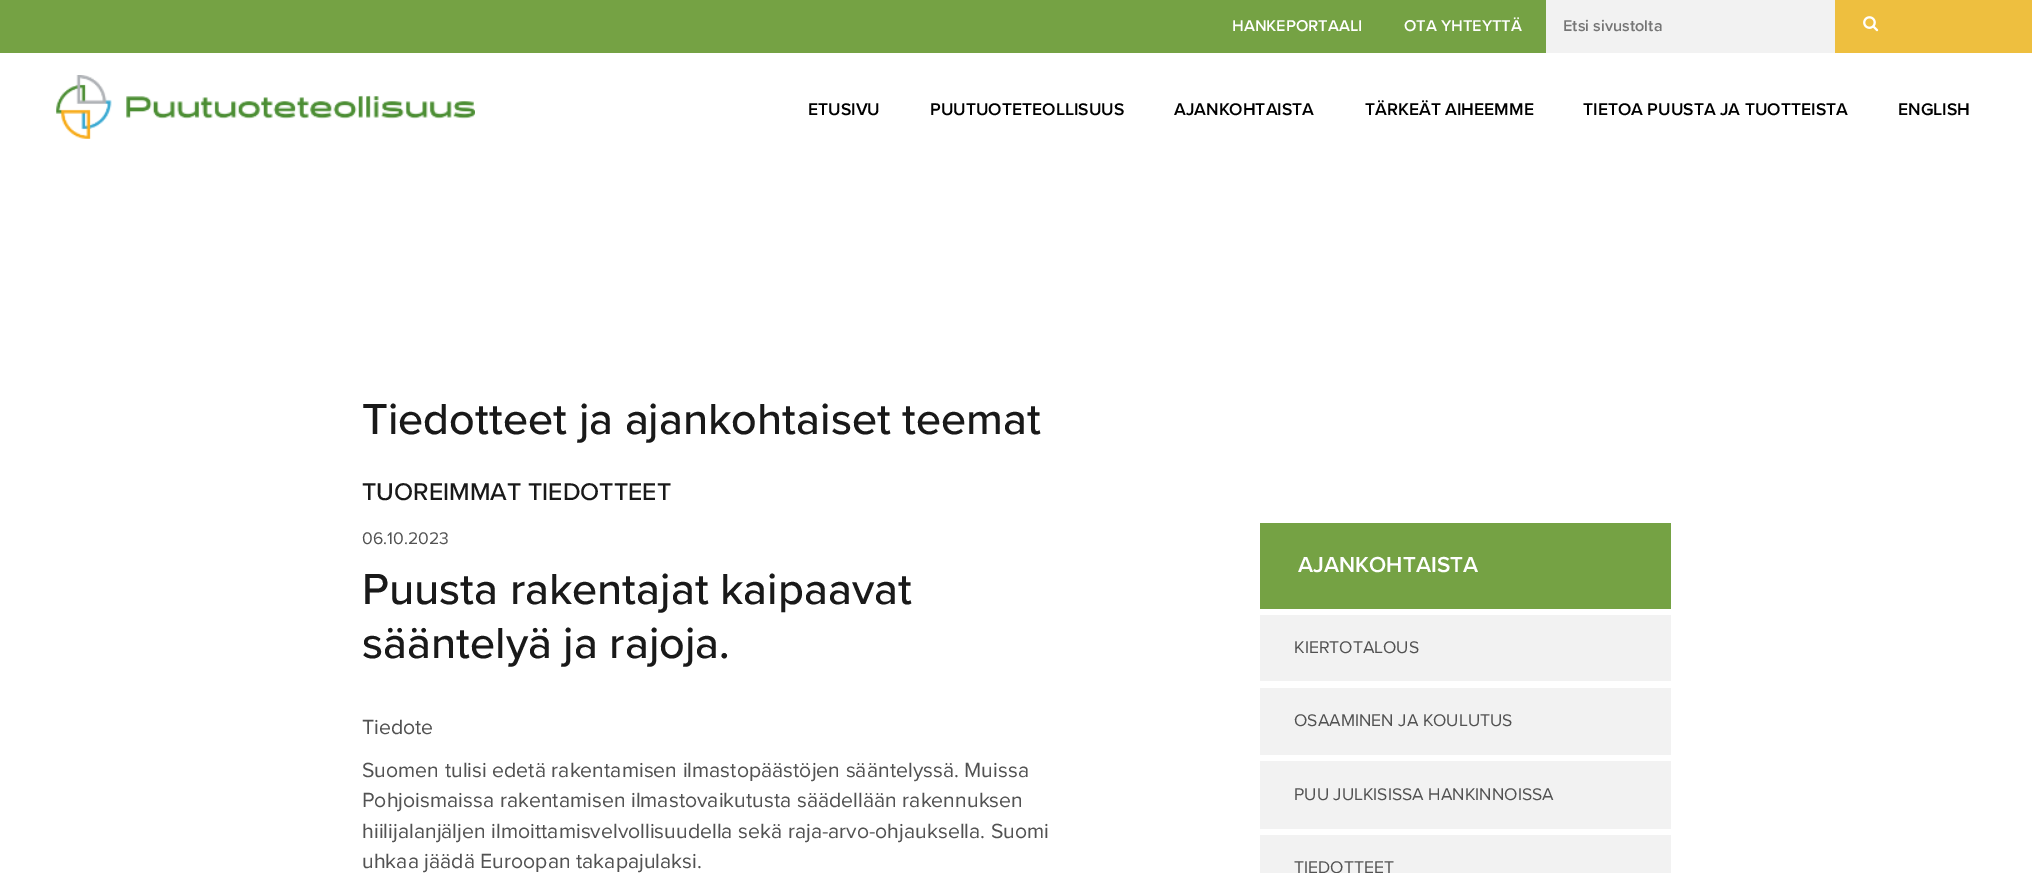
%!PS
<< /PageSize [2032 873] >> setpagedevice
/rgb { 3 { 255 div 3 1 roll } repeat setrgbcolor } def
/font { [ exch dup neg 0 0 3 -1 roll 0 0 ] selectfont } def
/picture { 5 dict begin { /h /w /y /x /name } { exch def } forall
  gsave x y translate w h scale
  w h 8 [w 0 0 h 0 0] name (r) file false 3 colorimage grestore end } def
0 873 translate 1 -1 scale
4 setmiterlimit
255 255 255 rgb
0 0 2032 873 rectfill
[
  [0 0 1546 53 117 162 68]
  [1546 0 289 53 242 242 242]
  [1835 0 197 53 238 191 63]
] { aload pop rgb rectfill } forall
(img/1.rgb) 1863 16 16 16 picture
(img/2.rgb) 56 75 419 64 picture
[
  [1260 523 411 86 117 162 68]
  [1260 615 411 66 242 242 242]
  [1260 688 411 67 242 242 242]
  [1260 761 411 68 242 242 242]
  [1260 835 411 38 242 242 242]
] { aload pop rgb rectfill } forall
/ProximaNova-SemiBold 16.25 font
255 255 255 rgb
1232 31 moveto (HANKEPORTAALI) show
1404 31 moveto (OTA YHTEYTTÄ) show
117 117 117 rgb
1563 31 moveto (Etsi sivustolta) show
/ProximaNova-SemiBold 17.5 font
0 0 0 rgb
[
  [(ETUSIVU) 808 115]
  [(PUUTUOTETEOLLISUUS) 930 115]
  [(AJANKOHTAISTA) 1174 115]
  [(TÄRKEÄT AIHEEMME) 1365 115]
  [(TIETOA PUUSTA JA TUOTTEISTA) 1583 115]
  [(ENGLISH) 1898 115]
] { aload pop moveto show } forall
/ProximaNova-Medium 45 font
25 25 25 rgb
362 434 moveto (Tiedotteet ja ajankohtaiset teemat) show
/ProximaNova-Medium 25 font
362 500 moveto (TUOREIMMAT TIEDOTTEET) show
/ProximaNova-Regular 17.5 font
82 82 82 rgb
362 544 moveto (06.10.2023) show
/ProximaNova-Medium 45 font
25 25 25 rgb
362 604 moveto (Puusta rakentajat kaipaavat) show
362 658 moveto (sääntelyä ja rajoja.) show
/ProximaNova-Regular 21.25 font
82 82 82 rgb
[
  [(Tiedote) 362 734]
  [(Suomen tulisi edetä rakentamisen ilmastopäästöjen sääntelyssä. Muissa) 362 777]
  [(Pohjoismaissa rakentamisen ilmastovaikutusta säädellään rakennuksen) 362 807]
  [(hiilijalanjäljen ilmoittamisvelvollisuudella sekä raja-arvo-ohjauksella. Suomi) 362 838]
  [(uhkaa jäädä Euroopan takapajulaksi.) 362 868]
] { aload pop moveto show } forall
/ProximaNova-SemiBold 22.5 font
255 255 255 rgb
1298 572 moveto (AJANKOHTAISTA) show
/ProximaNova-Regular 17.5 font
82 82 82 rgb
[
  [(KIERTOTALOUS) 1294 653]
  [(OSAAMINEN JA KOULUTUS) 1294 726]
  [(PUU JULKISISSA HANKINNOISSA) 1294 800]
  [(TIEDOTTEET) 1294 873]
] { aload pop moveto show } forall
showpage
